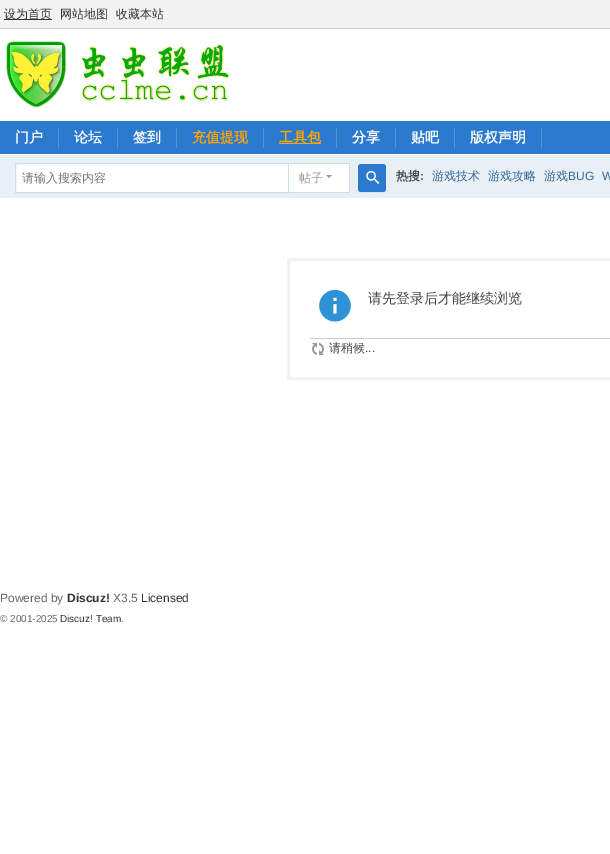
%!PS
<< /PageSize [610 854] >> setpagedevice
/rgb { 3 { 255 div 3 1 roll } repeat setrgbcolor } def
/font { [ exch dup neg 0 0 3 -1 roll 0 0 ] selectfont } def
/roundrect { 5 dict begin { /r /h /w /y /x } { exch def } forall
  x r add y moveto x w add y 2 copy h add r arct x w add y h add x 1 index r arct
  x y h add x y r arct x y 2 copy exch w add exch r arct closepath end } def
/picture { 5 dict begin { /h /w /y /x /name } { exch def } forall
  gsave x y translate w h scale
  w h 8 [w 0 0 h 0 0] name (r) file false 3 colorimage grestore end } def
0 854 translate 1 -1 scale
4 setmiterlimit
255 255 255 rgb
0 0 610 854 rectfill
[
  [0 0 610 28 242 242 242]
  [0 28 610 1 205 205 205]
  [4 19 48 1 51 51 51]
] { aload pop rgb rectfill } forall
(img/1.rgb) 6 41 224 67 picture
[
  [0 121 610 33 43 122 205]
  [58 128 1 20 85 149 215]
  [117 128 1 20 85 149 215]
  [176 128 1 20 85 149 215]
  [263 128 1 20 85 149 215]
  [336 128 1 20 85 149 215]
  [279 143 42 1 255 165 0]
  [395 128 1 20 85 149 215]
  [454 128 1 20 85 149 215]
  [541 128 1 20 85 149 215]
  [0 155 610 43 232 239 245]
  [287 163 63 1 207 222 227]
  [349 163 1 30 207 222 227]
  [287 192 63 1 207 222 227]
] { aload pop rgb rectfill } forall
255 255 255 rgb
15.5 163.5 moveto 288.5 163.5 lineto 288.5 192.5 lineto 15.5 192.5 lineto closepath gsave fill grestore
207 222 227 rgb
stroke
255 255 255 rgb
289 164 60 28 rectfill
153 153 153 rgb
326 175 moveto 332 175 lineto 329 178 lineto closepath fill
229 229 229 rgb
358 189 moveto 358 193.5 361 193 364.5 193 curveto 379.5 193 lineto 383 193 386 193.5 386 189 curveto 386 190.5 384.5 192 383 192 curveto 361 192 lineto 359.5 192 358 190.5 358 189 curveto closepath fill
43 122 205 rgb
358 164 28 28 3 roundrect fill
(img/2.rgb) 366 171 14 13 picture
242 242 242 rgb
3 setlinewidth
288.5 259.5 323 119 rectstroke
(img/3.rgb) 319 289 32 33 picture
205 205 205 rgb
310 338 300 1 rectfill
(img/4.rgb) 312 343 12 12 picture
/WenQuanYiZenHei-Medium 12 font
51 51 51 rgb
[
  [(设为首页) 4 18]
  [(网站地图) 60 18]
  [(收藏本站) 116 18]
] { aload pop moveto show } forall
/WenQuanYiZenHei-Bold 14 font
255 255 255 rgb
[
  [(门户) 15 142]
  [(论坛) 74 142]
  [(签到) 133 142]
] { aload pop moveto show } forall
255 165 0 rgb
192 142 moveto (充值提现) show
279 142 moveto (工具包) show
255 255 255 rgb
[
  [(分享) 352 142]
  [(贴吧) 411 142]
  [(版权声明) 470 142]
] { aload pop moveto show } forall
/WenQuanYiZenHei-Medium 12 font
117 117 117 rgb
22 182 moveto (请输入搜索内容) show
153 153 153 rgb
299 182 moveto (帖子) show
/WenQuanYiZenHei-Bold 12 font
68 68 68 rgb
396 180 moveto (热搜) show
/LiberationSans-Bold 12 font
420 180 moveto (:) show
/WenQuanYiZenHei-Medium 12 font
51 102 153 rgb
[
  [(游戏技术) 432 180]
  [(游戏攻略) 488 180]
  [(游戏) 544 180]
] { aload pop moveto show } forall
/LiberationSans-Regular 12 font
568 180 moveto (BUG) show
602 180 moveto (W) show
/WenQuanYiZenHei-Medium 14 font
68 68 68 rgb
368 303 moveto (请先登录后才能继续浏览) show
/WenQuanYiZenHei-Medium 12 font
329 352 moveto (请稍候) show
/LiberationSans-Regular 12 font
365 352 moveto (...) show
102 102 102 rgb
0 602 moveto (Powered by) show
/LiberationSans-Bold 12 font
51 51 51 rgb
67 602 moveto (Discuz!) show
/LiberationSans-Regular 12 font
102 102 102 rgb
113 602 moveto (X3.5) show
51 51 51 rgb
141 602 moveto (Licensed) show
/LiberationSans-Regular 10 font
102 102 102 rgb
0 622 moveto (© 2001-2025) show
51 51 51 rgb
60 622 moveto (Discuz! Team) show
102 102 102 rgb
121 622 moveto (.) show
showpage
